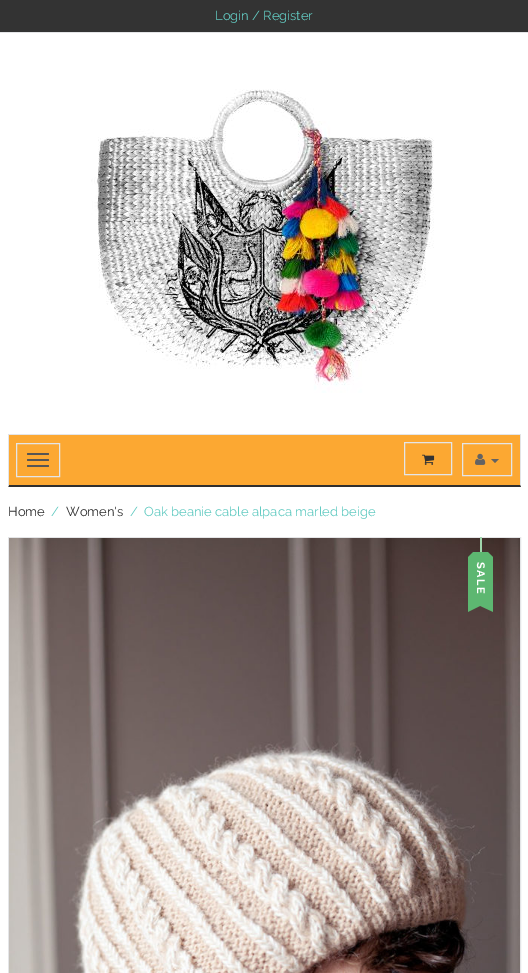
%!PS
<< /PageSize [528 973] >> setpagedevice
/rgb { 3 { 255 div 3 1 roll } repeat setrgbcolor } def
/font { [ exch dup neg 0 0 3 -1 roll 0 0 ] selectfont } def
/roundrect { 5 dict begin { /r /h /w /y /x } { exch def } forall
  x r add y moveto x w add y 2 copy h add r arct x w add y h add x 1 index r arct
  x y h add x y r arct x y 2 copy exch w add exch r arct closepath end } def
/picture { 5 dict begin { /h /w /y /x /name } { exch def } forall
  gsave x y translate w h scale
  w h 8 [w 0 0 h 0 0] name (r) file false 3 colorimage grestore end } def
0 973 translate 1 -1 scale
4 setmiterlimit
255 255 255 rgb
0 0 528 973 rectfill
51 51 51 rgb
0 0 528 32 rectfill
228 229 231 rgb
0 32 528 1 rectfill
(img/1.rgb) 91 89 343 304 picture
252 168 50 rgb
9 435 511 50 rectfill
228 229 231 rgb
8 434 513 1 rectfill
521 434 moveto 521 487 lineto 520 485 lineto 520 435 lineto closepath fill
47 47 47 rgb
521 487 moveto 8 487 lineto 9 485 lineto 520 485 lineto closepath fill
228 229 231 rgb
8 487 moveto 8 434 lineto 9 435 lineto 9 485 lineto closepath fill
16.5 443.5 43 33 rectstroke
85 85 85 rgb
27 453 22 2 1 roundrect fill
27 459 22 2 1 roundrect fill
27 465 22 2 1 roundrect fill
228 229 231 rgb
404.5 442.5 47 32 rectstroke
(img/2.rgb) 422 454 13 11 picture
462.5 443.5 49 32 rectstroke
(img/3.rgb) 475 453 11 12 picture
99 99 99 rgb
491 459 moveto 499 459 lineto 495 463 lineto closepath fill
228 229 231 rgb
8.5 537.5 512 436 rectstroke
(img/4.rgb) 9 538 511 435 picture
(img/5.rgb) 468 537 25 75 picture
/Raleway-Regular 13 font
99 203 194 rgb
215 20 moveto (Login / Register) show
47 47 47 rgb
8 516 moveto (Home) show
99 203 194 rgb
51 516 moveto (/) show
47 47 47 rgb
66 516 moveto (Women's) show
99 203 194 rgb
130 516 moveto (/) show
144 516 moveto (Oak beanie cable alpaca marled beige) show
/Raleway-Bold 11 font
255 255 255 rgb
gsave 477 562 translate 90 rotate 0 0 moveto 1.5 0 (SALE) ashow grestore
showpage
